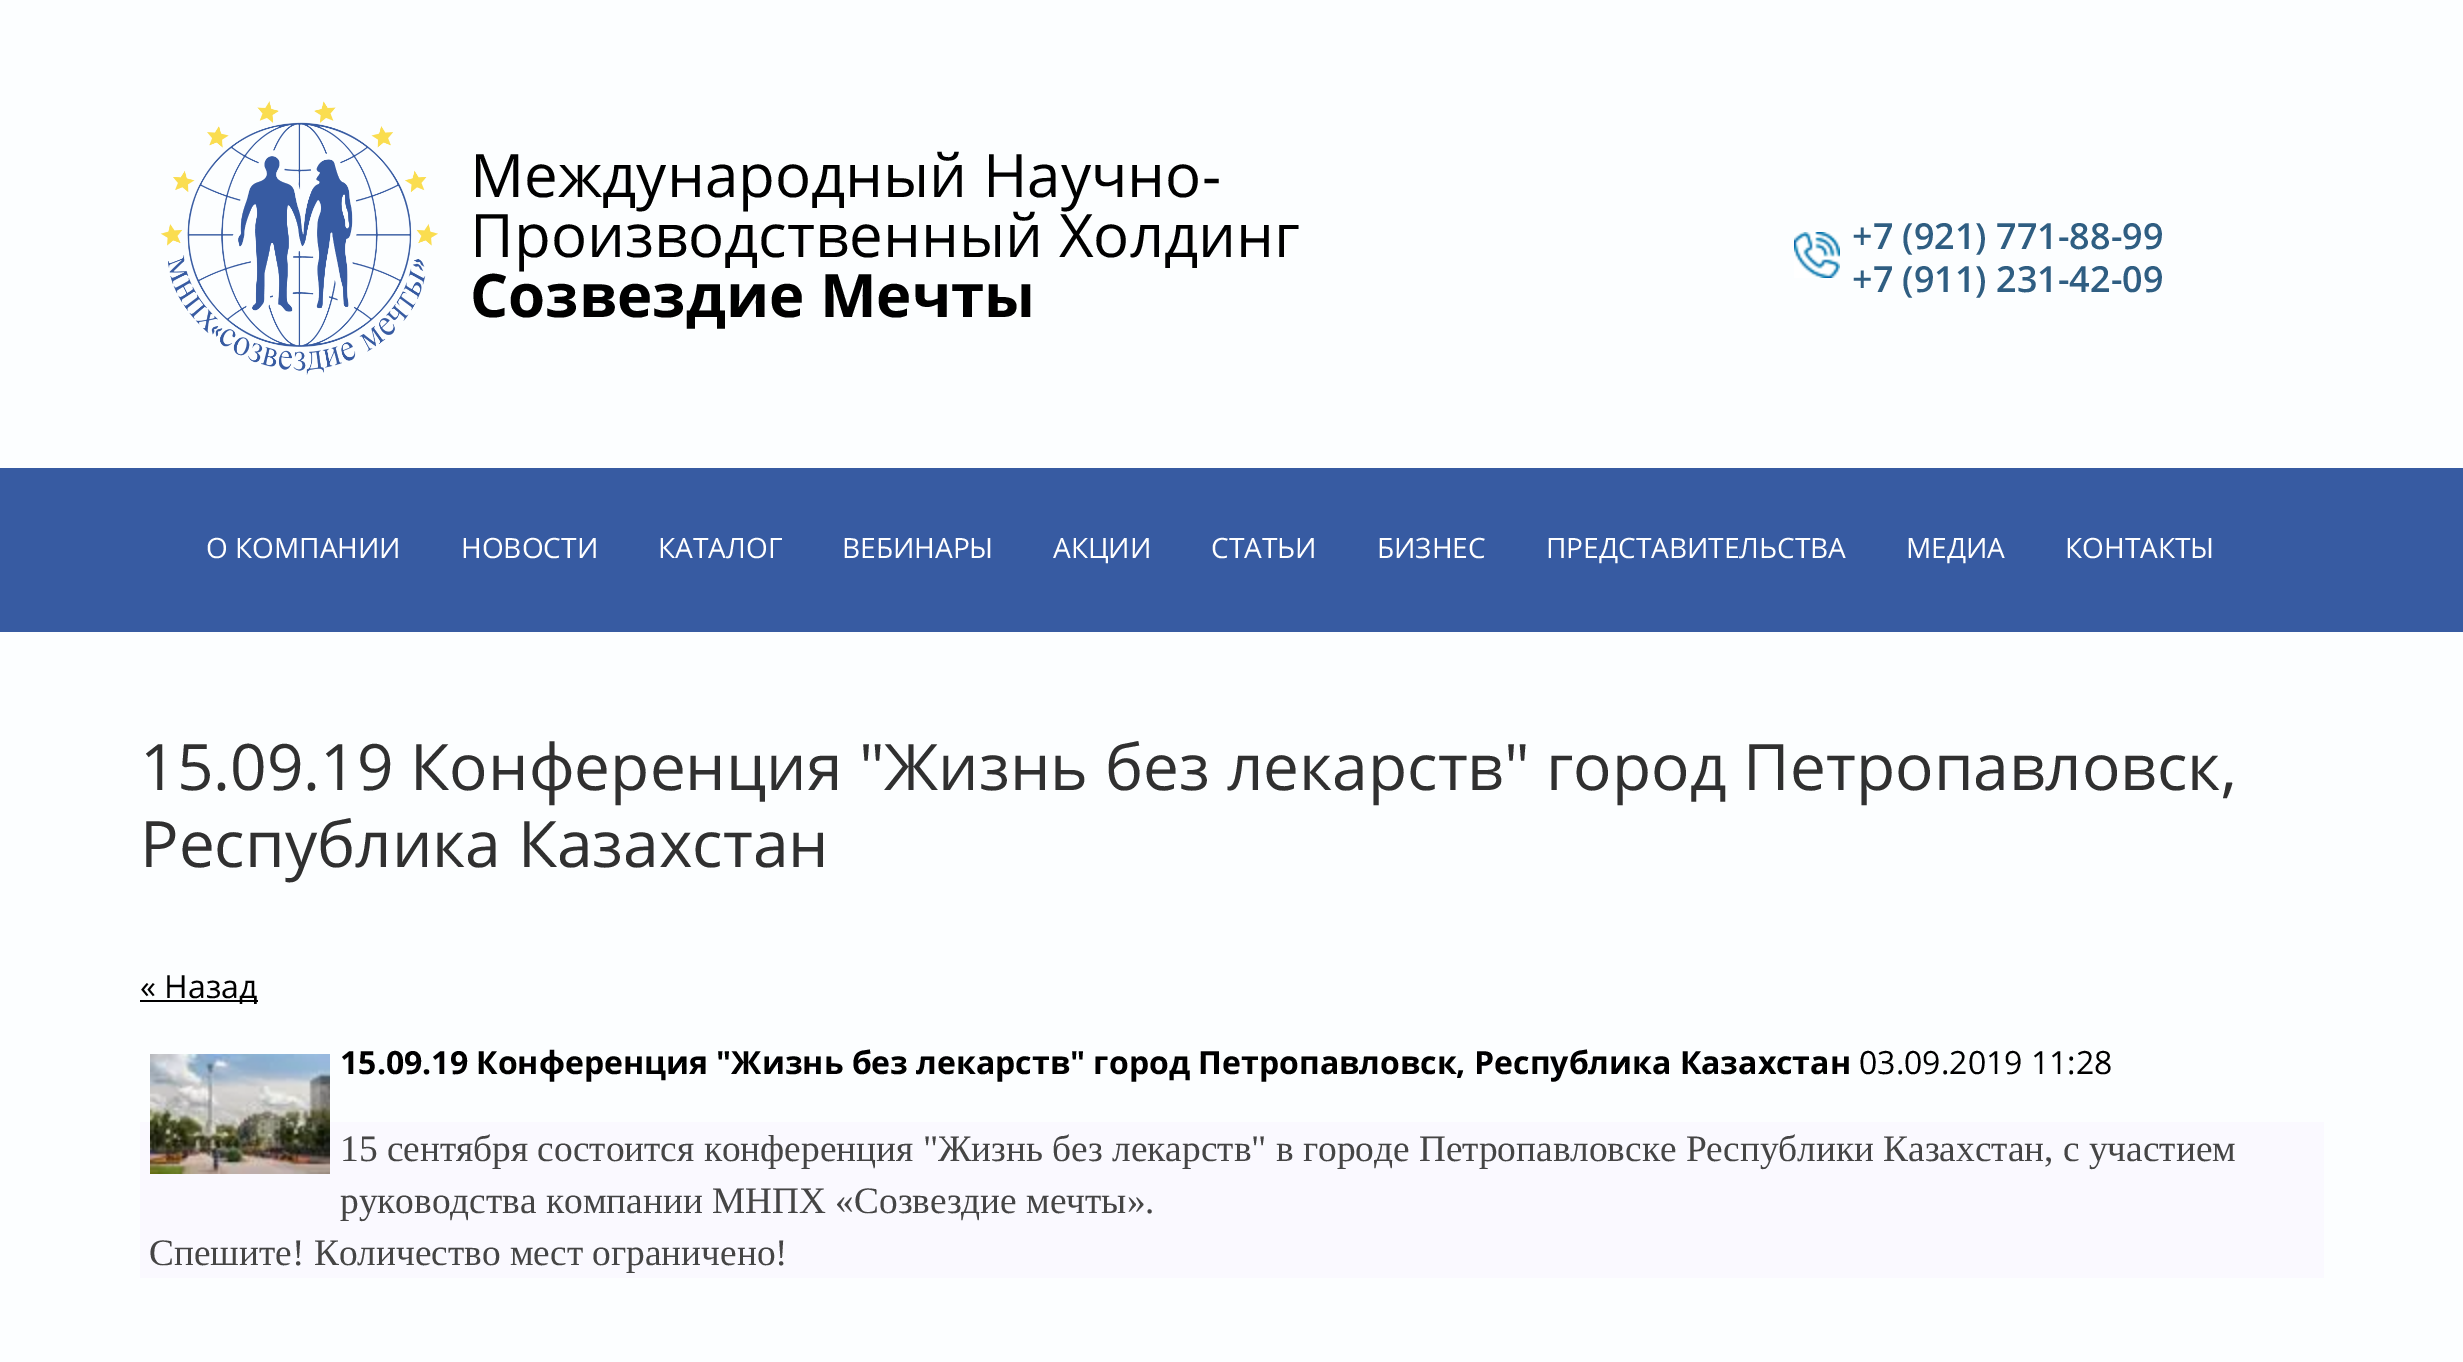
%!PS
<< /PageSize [2463 1362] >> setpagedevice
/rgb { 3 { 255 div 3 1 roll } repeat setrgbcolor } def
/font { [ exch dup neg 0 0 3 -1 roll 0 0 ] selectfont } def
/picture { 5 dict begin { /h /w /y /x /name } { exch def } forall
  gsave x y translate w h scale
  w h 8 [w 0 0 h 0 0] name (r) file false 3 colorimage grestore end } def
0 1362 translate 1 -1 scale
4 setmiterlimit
252 254 255 rgb
0 0 2463 1362 rectfill
(img/1.rgb) 160 101 278 274 picture
(img/2.rgb) 1794 232 46 46 picture
[
  [0 468 2463 164 55 91 162]
  [140 1000 118 2 0 0 0]
  [140 1122 2184 156 250 249 255]
] { aload pop rgb rectfill } forall
(img/3.rgb) 150 1054 180 120 picture
/OpenSans-Regular 60 font
0 0 0 rgb
470 197 moveto (Международный Научно-) show
470 257 moveto (Производственный Холдинг) show
/OpenSans-Bold 60 font
470 317 moveto (Созвездие Мечты) show
/OpenSans-SemiBold 36 font
47 94 130 rgb
1852 249 moveto (+7 \(921\) 771-88-99) show
1852 292 moveto (+7 \(911\) 231-42-09) show
/OpenSans-Regular 28 font
255 255 255 rgb
[
  [(О КОМПАНИИ) 206 558]
  [(НОВОСТИ) 461 558]
  [(КАТАЛОГ) 658 558]
  [(ВЕБИНАРЫ) 842 558]
  [(АКЦИИ) 1053 558]
  [(СТАТЬИ) 1211 558]
  [(БИЗНЕС) 1377 558]
  [(ПРЕДСТАВИТЕЛЬСТВА) 1546 558]
  [(МЕДИА) 1906 558]
  [(КОНТАКТЫ) 2065 558]
] { aload pop moveto show } forall
/OpenSans-Regular 64 font
48 48 48 rgb
140 790 moveto (15.09.19 Конференция "Жизнь без лекарств" город Петропавловск,) show
140 867 moveto (Республика Казахстан) show
/OpenSans-Regular 32 font
0 0 0 rgb
140 998 moveto (« Назад) show
/OpenSans-Bold 32 font
340 1074 moveto (15.09.19 Конференция "Жизнь без лекарств" город Петропавловск, Республика Казахстан) show
/OpenSans-Regular 32 font
1859 1074 moveto (03.09.2019 11:28) show
/LiberationSerif-Regular 37.33 font
69 69 69 rgb
[
  [(15 сентября состоится конференция "Жизнь без лекарств" в городе Петропавловске Республики Казахстан, с участием) 340 1161]
  [(руководства компании МНПХ «Созвездие мечты».) 340 1213]
  [(Спешите! Количество мест ограничено!) 149 1265]
] { aload pop moveto show } forall
showpage
